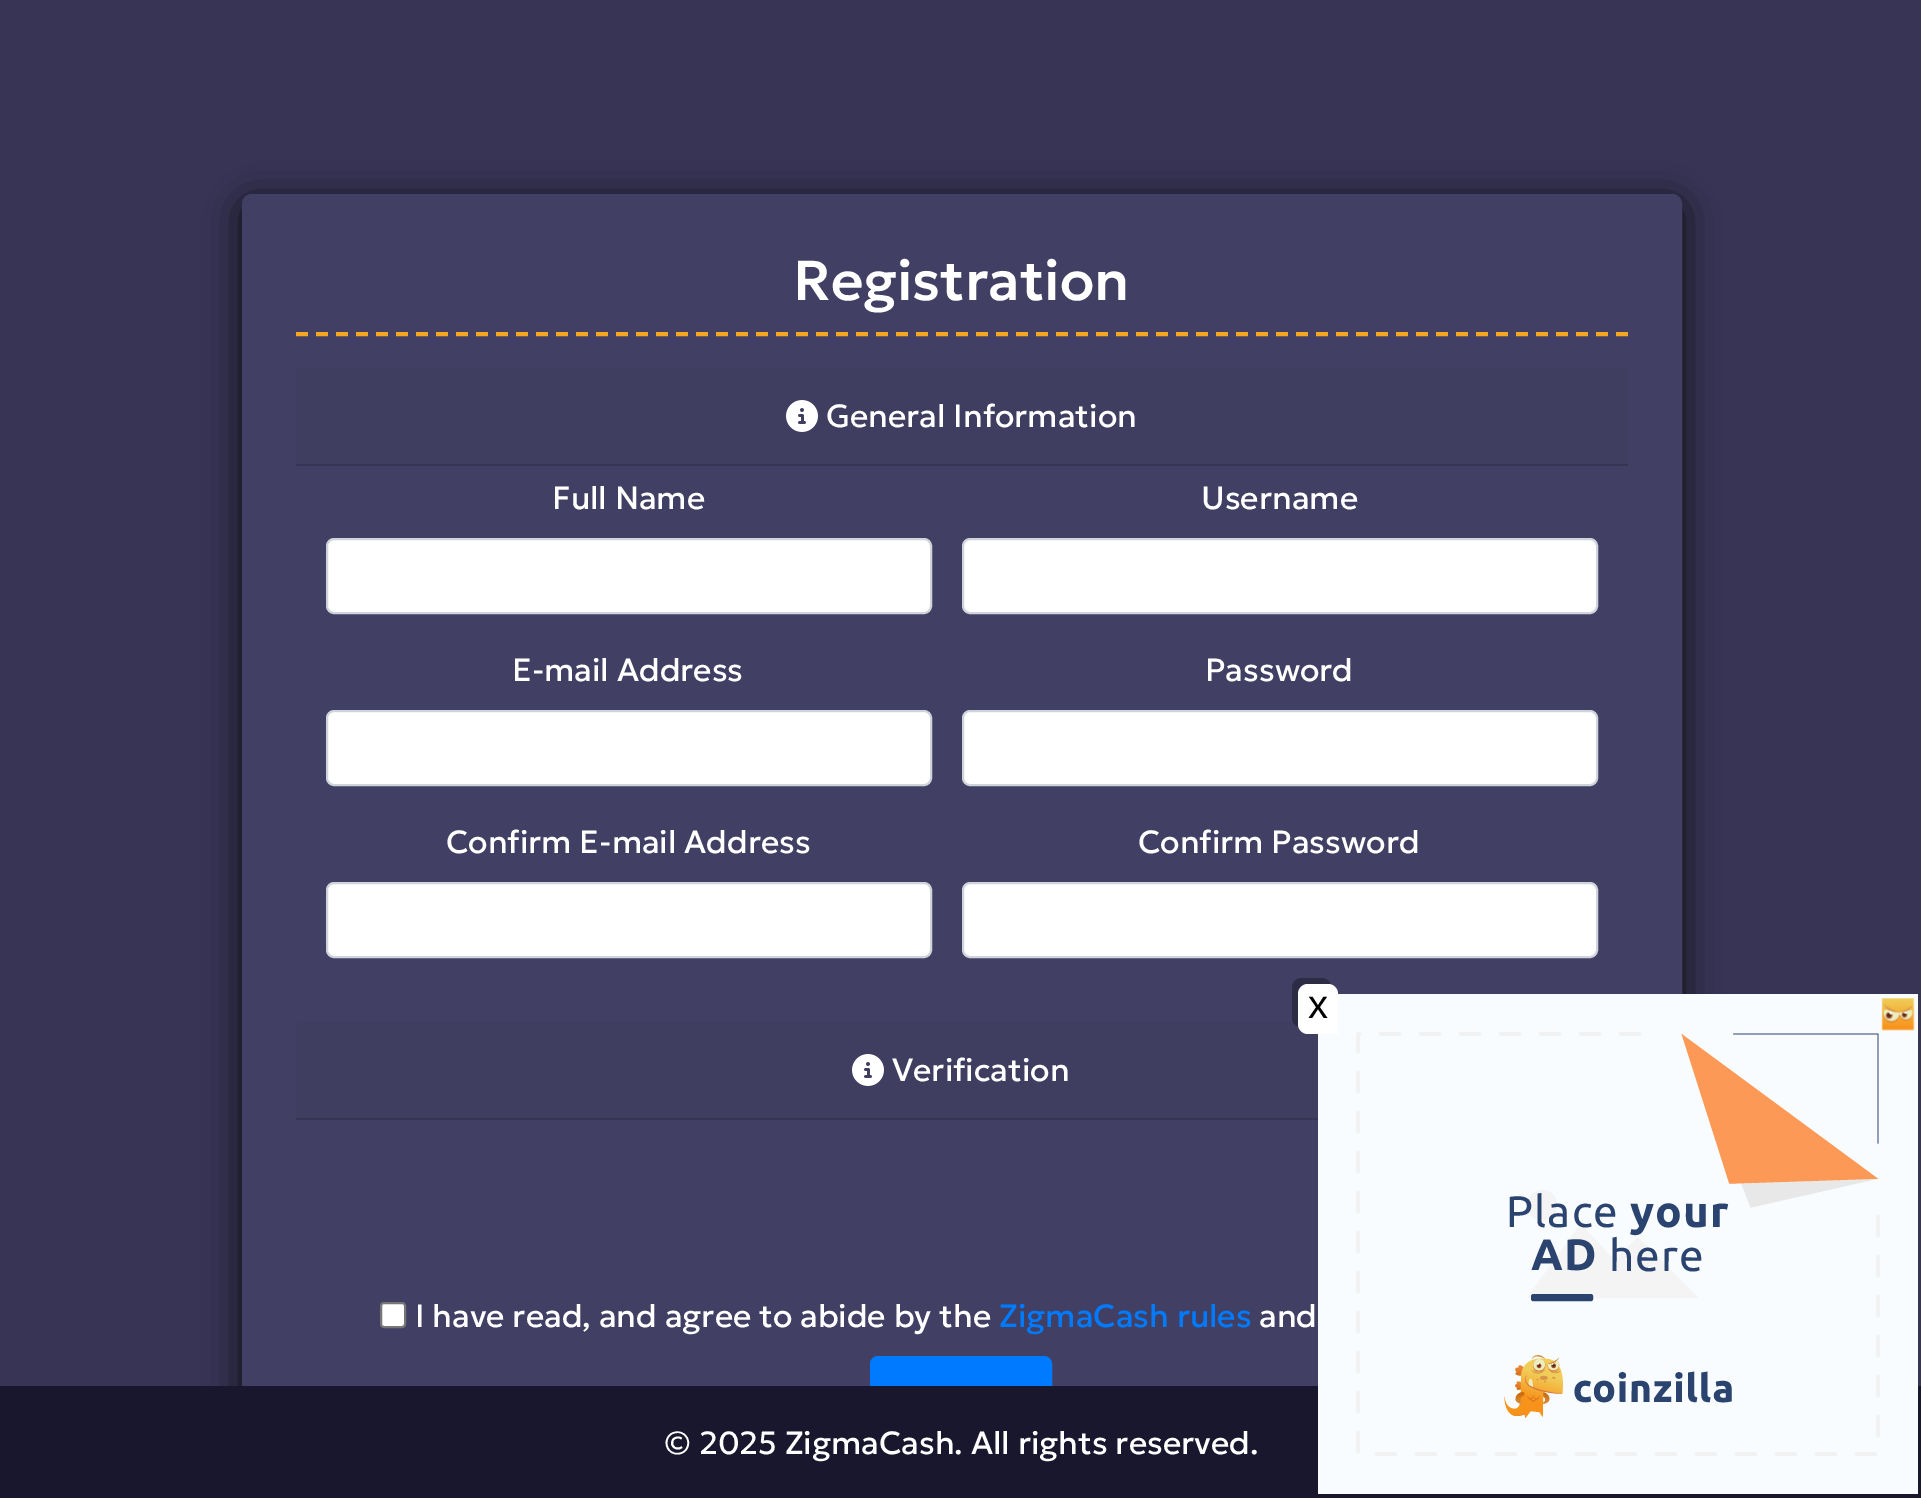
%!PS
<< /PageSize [1921 1498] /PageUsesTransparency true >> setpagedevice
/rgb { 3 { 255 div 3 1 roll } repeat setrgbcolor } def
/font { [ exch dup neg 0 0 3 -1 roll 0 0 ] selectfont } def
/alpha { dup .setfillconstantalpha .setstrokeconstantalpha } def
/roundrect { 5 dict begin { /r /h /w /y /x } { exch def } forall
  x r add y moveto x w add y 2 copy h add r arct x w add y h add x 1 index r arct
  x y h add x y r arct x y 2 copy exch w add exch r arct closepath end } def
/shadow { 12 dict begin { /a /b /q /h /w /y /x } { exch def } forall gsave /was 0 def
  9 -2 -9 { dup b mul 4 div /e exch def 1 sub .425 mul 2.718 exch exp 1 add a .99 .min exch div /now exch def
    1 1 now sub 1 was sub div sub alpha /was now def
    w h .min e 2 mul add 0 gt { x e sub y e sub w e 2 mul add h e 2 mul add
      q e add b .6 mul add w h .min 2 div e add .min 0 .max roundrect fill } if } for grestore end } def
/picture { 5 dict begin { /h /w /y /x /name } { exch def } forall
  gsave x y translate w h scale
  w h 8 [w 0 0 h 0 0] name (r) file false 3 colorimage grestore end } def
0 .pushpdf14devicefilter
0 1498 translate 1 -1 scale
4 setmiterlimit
55 52 86 rgb
0 0 1921 1498 rectfill
10 10 10 rgb
242 202 1440 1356 10 18 1 shadow
65 63 99 rgb
245 197 1434 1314 7 roundrect gsave fill grestore
6 setlinewidth
stroke
245 166 35 rgb
4 setlinewidth
[12 8] 0 setdash
296 334 moveto 1628 334 lineto stroke
63 61 96 rgb
296 368 1332 96 rectfill
55 53 84 rgb
296 464 1332 2 rectfill
(img/1.rgb) 786 400 32 32 picture
255 255 255 rgb
327 539 604 74 7 roundrect gsave fill grestore
206 212 218 rgb
2 setlinewidth
[] 0 setdash
stroke
255 255 255 rgb
327 711 604 74 7 roundrect gsave fill grestore
206 212 218 rgb
stroke
255 255 255 rgb
327 883 604 74 7 roundrect gsave fill grestore
206 212 218 rgb
stroke
255 255 255 rgb
963 539 634 74 7 roundrect gsave fill grestore
206 212 218 rgb
stroke
255 255 255 rgb
963 711 634 74 7 roundrect gsave fill grestore
206 212 218 rgb
stroke
255 255 255 rgb
963 883 634 74 7 roundrect gsave fill grestore
206 212 218 rgb
stroke
63 61 96 rgb
302 1022 moveto 1622 1022 lineto 1625.5 1022 1628 1024.5 1628 1028 curveto 1628 1120 lineto 296 1120 lineto 296 1028 lineto 296 1024.5 298.5 1022 302 1022 curveto closepath fill
55 53 84 rgb
296 1118 1022 2 rectfill
(img/1.rgb) 852 1054 32 32 picture
255 255 255 rgb
381 1303 24 24 3 roundrect gsave fill grestore
118 118 118 rgb
stroke
0 123 255 rgb
871 1357 180 74 7 roundrect gsave fill grestore
stroke
25 23 46 rgb
0 1386 1921 112 rectfill
(img/2.rgb) 1318 994 600 500 picture
0.3 alpha
0 0 0 rgb
1302 978 moveto 1296 978 1292 982 1292 988 curveto 1292 1018 lineto 1292 1022 1295 1026 1299 1027 curveto 1298 1024 lineto 1298 994 lineto 1298 988 1302 984 1308 984 curveto 1328 984 lineto 1331 985 lineto 1330 981 1326 978 1322 978 curveto closepath fill
1 alpha
255 255 255 rgb
1308 984 moveto 1328 984 lineto 1333.5 984 1338 988.5 1338 994 curveto 1338 1034 lineto 1308 1034 lineto 1302.5 1034 1298 1029.5 1298 1024 curveto 1298 994 lineto 1298 988.5 1302.5 984 1308 984 curveto closepath fill
/Geologica-Medium 56 font
793 300 moveto (Registration) show
/Geologica-Regular 32 font
[
  [(General Information) 826 427]
  [(Full Name) 552 509]
  [(E-mail Address) 512 681]
  [(Confirm E-mail Address) 446 853]
  [(Username) 1201 509]
  [(Password) 1205 681]
  [(Confirm Password) 1138 853]
  [(Verification) 892 1081]
  [(I have read, and agree to abide by the) 415 1327]
] { aload pop moveto show } forall
0 123 255 rgb
999 1327 moveto (ZigmaCash rules) show
255 255 255 rgb
1259 1327 moveto (and) show
664 1454 moveto (© 2025 ZigmaCash. All rights reserved.) show
/LiberationSans-Regular 40 font
0 0 0 rgb
1308 1018 moveto (x) show
.poppdf14devicefilter showpage
